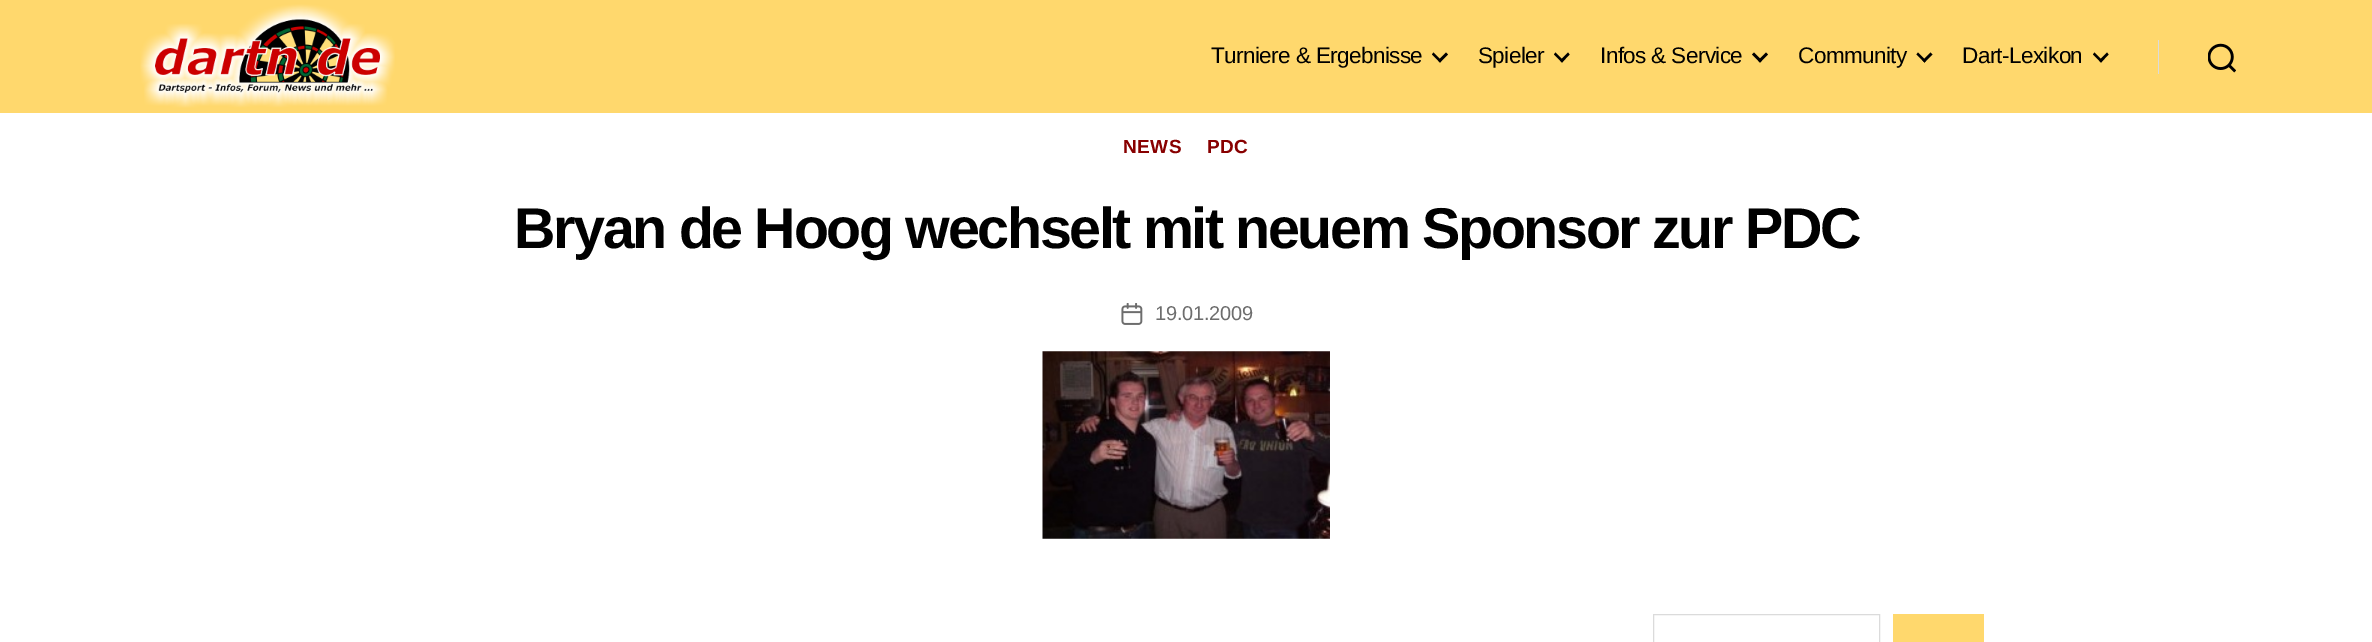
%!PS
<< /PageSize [2372 642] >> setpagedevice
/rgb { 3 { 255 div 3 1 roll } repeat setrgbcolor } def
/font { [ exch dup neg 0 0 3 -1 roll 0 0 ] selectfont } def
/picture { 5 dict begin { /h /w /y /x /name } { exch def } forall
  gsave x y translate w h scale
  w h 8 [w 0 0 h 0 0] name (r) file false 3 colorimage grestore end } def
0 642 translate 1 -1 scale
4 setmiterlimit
255 255 255 rgb
0 0 2372 642 rectfill
255 216 109 rgb
0 0 2372 113 rectfill
(img/1.rgb) 140 4 255 104 picture
0 0 0 rgb
1432 54.5 moveto 1433.5 52.5 lineto 1441.5 60.5 lineto 1440 62.5 lineto closepath fill
1438 60.5 moveto 1446 52.5 lineto 1448 54.5 lineto 1440 62.5 lineto closepath fill
1554 54.5 moveto 1555.5 52.5 lineto 1563.5 60.5 lineto 1562 62.5 lineto closepath fill
1560 60.5 moveto 1568 52.5 lineto 1569.5 54.5 lineto 1562 62.5 lineto closepath fill
1752 54.5 moveto 1754 52.5 lineto 1762 60.5 lineto 1760 62.5 lineto closepath fill
1758 60.5 moveto 1766 52.5 lineto 1768 54.5 lineto 1760 62.5 lineto closepath fill
1916.5 54.5 moveto 1918 52.5 lineto 1926 60.5 lineto 1924.5 62.5 lineto closepath fill
1922.5 60.5 moveto 1930.5 52.5 lineto 1932.5 54.5 lineto 1924.5 62.5 lineto closepath fill
2093 54.5 moveto 2094.5 52.5 lineto 2102.5 60.5 lineto 2101 62.5 lineto closepath fill
2099 60.5 moveto 2107 52.5 lineto 2108.5 54.5 lineto 2101 62.5 lineto closepath fill
219 219 219 rgb
2158 40 1 34 rectfill
(img/2.rgb) 2208 43 28 30 picture
(img/3.rgb) 1121 303 22 22 picture
(img/4.rgb) 1042 351 288 188 picture
1653.5 614.5 226 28 rectstroke
255 216 109 rgb
1893 614 91 28 rectfill
/LiberationSans-Regular 22.5 font
0 0 0 rgb
1211 63 moveto -0.6 0 (Turniere & Ergebnisse) ashow
1478 63 moveto -0.6 0 (Spieler) ashow
1600 63 moveto -0.6 0 (Infos & Service) ashow
1798 63 moveto -0.6 0 (Community) ashow
1962 63 moveto -0.6 0 (Dart-Lexikon) ashow
/LiberationSans-Bold 19 font
136 0 0 rgb
1123 153 moveto 0.5 0 (NEWS) ashow
1207 153 moveto 0.5 0 (PDC) ashow
/LiberationSans-Bold 57.5 font
0 0 0 rgb
514 248 moveto -2.4 0 (Bryan de Hoog wechselt mit neuem Sponsor zur PDC) ashow
/LiberationSans-Regular 20 font
109 109 109 rgb
1155 320 moveto -0.25 0 (19.01.2009) ashow
showpage
